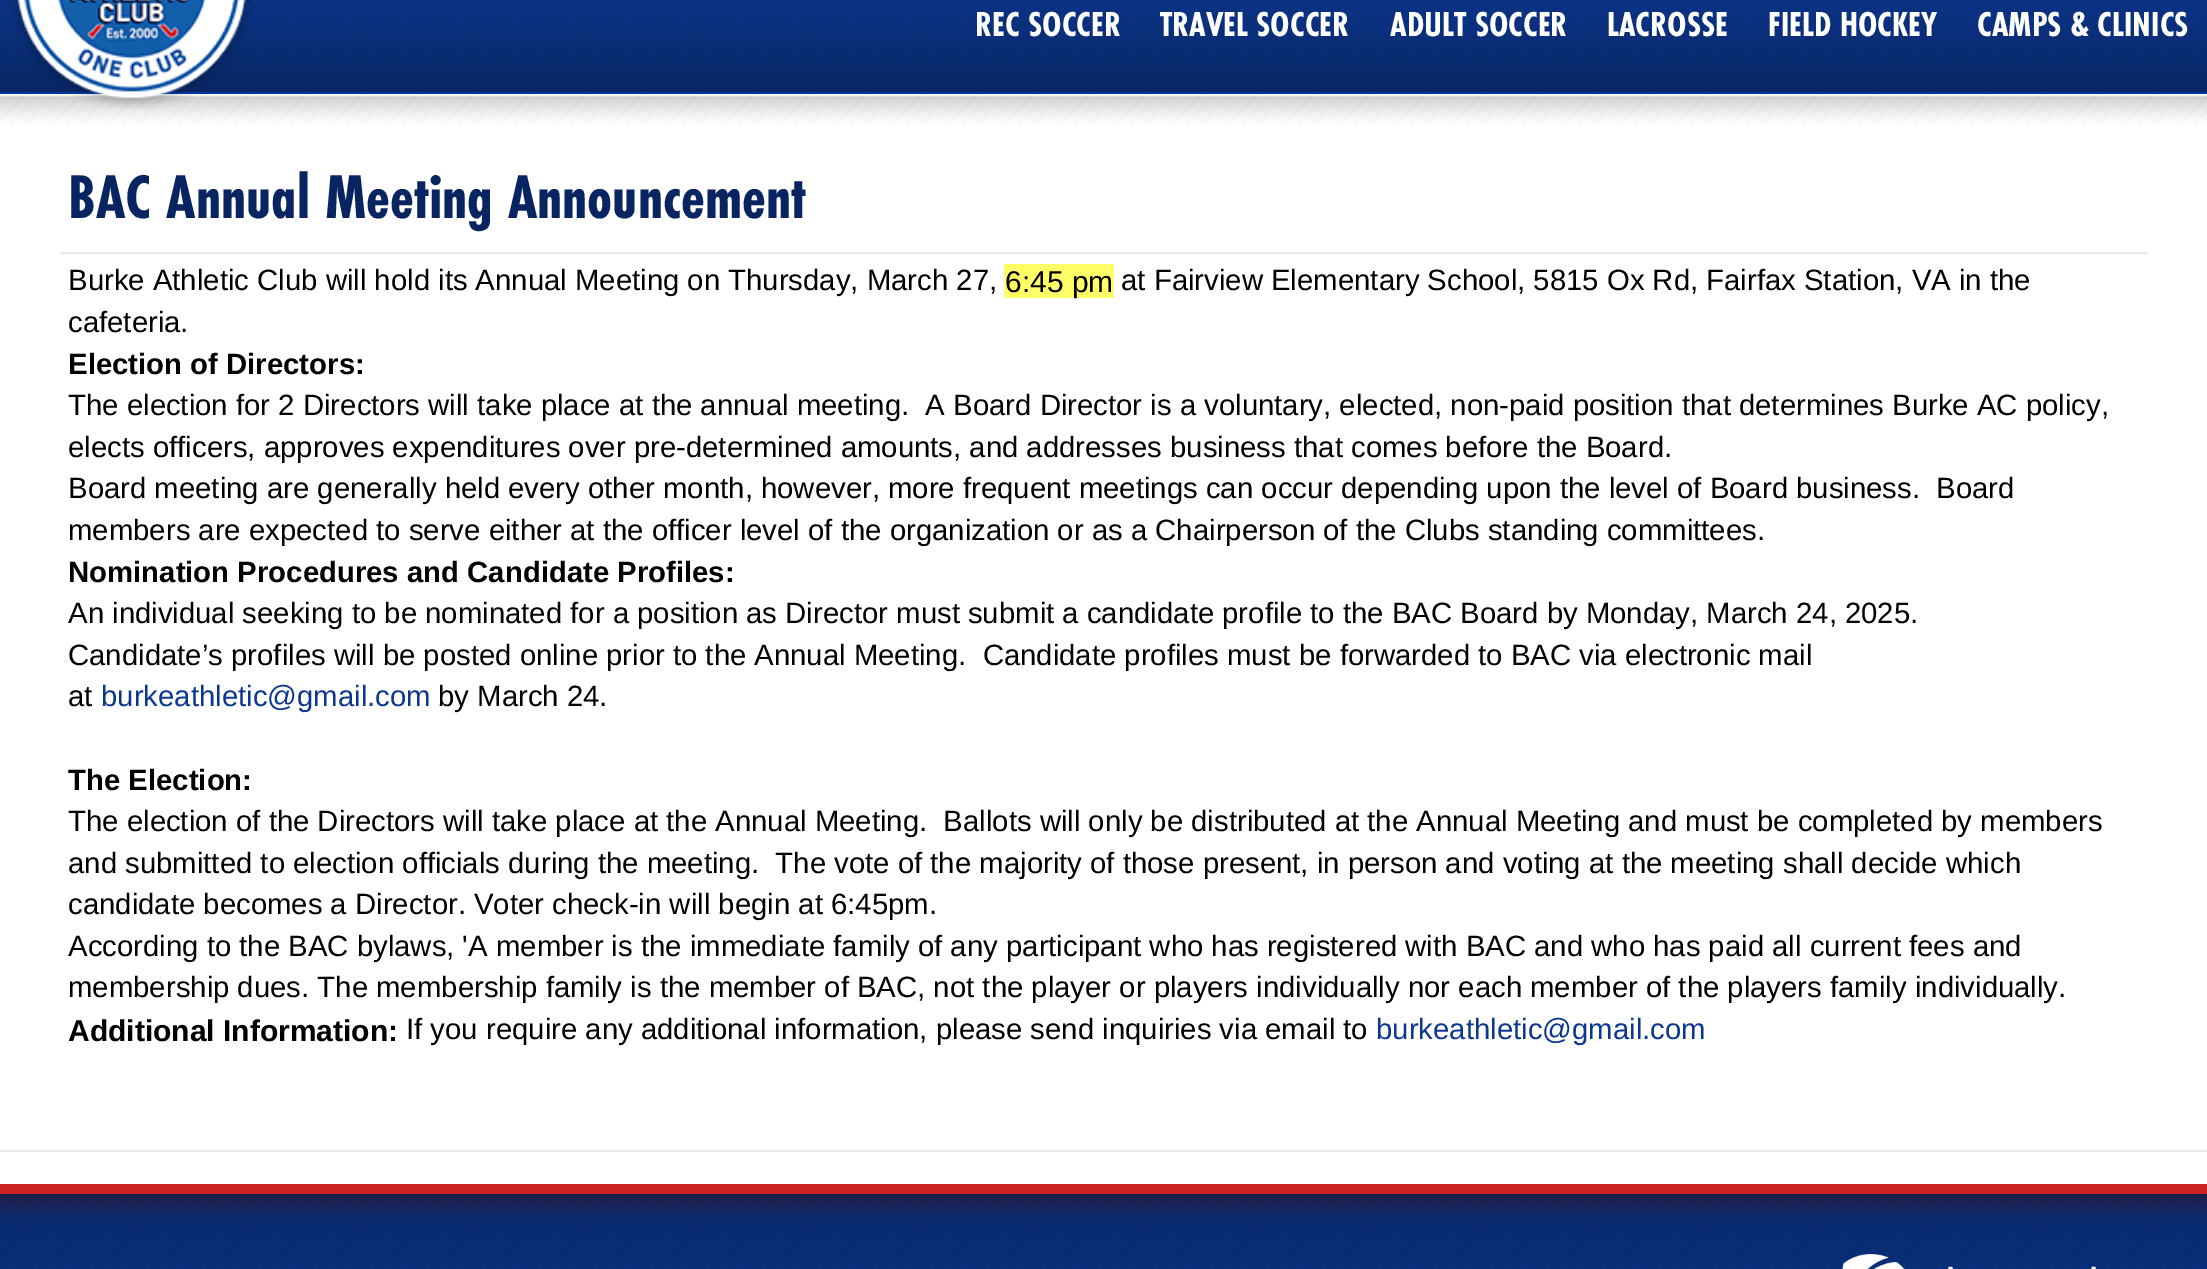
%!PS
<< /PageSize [2207 1269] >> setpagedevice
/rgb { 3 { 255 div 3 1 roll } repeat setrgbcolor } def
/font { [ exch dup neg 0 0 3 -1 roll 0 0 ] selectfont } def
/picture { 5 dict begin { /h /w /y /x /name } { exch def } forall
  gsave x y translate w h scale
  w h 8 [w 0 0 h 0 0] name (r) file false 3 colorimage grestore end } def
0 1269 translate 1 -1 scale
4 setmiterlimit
255 255 255 rgb
0 0 2207 1269 rectfill
(img/1.rgb) 0 0 2207 92 picture
4 58 166 rgb
0 92 2207 2 rectfill
(img/3.rgb) 0 95 2207 29 picture
(img/2.rgb) 8 0 247 109 picture
[
  [60 252 2088 2 233 233 233]
  [1004 264 110 34 255 255 102]
  [0 1150 2207 2 231 231 231]
] { aload pop rgb rectfill } forall
(img/4.rgb) 0 1194 2207 75 picture
203 35 35 rgb
0 1184 2207 10 rectfill
(img/5.rgb) 1842 1254 254 15 picture
/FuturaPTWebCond-Bold 36 font
255 255 255 rgb
[
  [(REC SOCCER) 975 36]
  [(TRAVEL SOCCER) 1160 36]
  [(ADULT SOCCER) 1390 36]
  [(LACROSSE) 1607 36]
  [(FIELD HOCKEY) 1768 36]
  [(CAMPS & CLINICS) 1977 36]
] { aload pop moveto show } forall
/FuturaPTWebCond-Bold 64 font
8 37 98 rgb
68 218 moveto (BAC Annual Meeting Announcement) show
/LiberationSans-Regular 29.33 font
0 0 0 rgb
68 290 moveto (Burke Athletic Club will hold its Annual Meeting on Thursday, March 27,) show
/LiberationSans-Regular 30 font
1005 292 moveto (6:45 pm) show
/LiberationSans-Regular 29.33 font
1121 290 moveto (at Fairview Elementary School, 5815 Ox Rd, Fairfax Station, VA in the) show
68 332 moveto (cafeteria.) show
/LiberationSans-Bold 29.33 font
68 374 moveto (Election of Directors:) show
/LiberationSans-Regular 29.33 font
[
  [(The election for 2 Directors will take place at the annual meeting.  A Board Director is a voluntary, elected, non-paid position that determines Burke AC policy,) 68 415]
  [(elects officers, approves expenditures over pre-determined amounts, and addresses business that comes before the Board.) 68 457]
  [(Board meeting are generally held every other month, however, more frequent meetings can occur depending upon the level of Board business.  Board) 68 498]
  [(members are expected to serve either at the officer level of the organization or as a Chairperson of the Clubs standing committees.) 68 540]
] { aload pop moveto show } forall
/LiberationSans-Bold 29.33 font
68 582 moveto (Nomination Procedures and Candidate Profiles:) show
/LiberationSans-Regular 29.33 font
[
  [(An individual seeking to be nominated for a position as Director must submit a candidate profile to the BAC Board by Monday, March 24, 2025.) 68 623]
  [(Candidate’s profiles will be posted online prior to the Annual Meeting.  Candidate profiles must be forwarded to BAC via electronic mail) 68 665]
  [(at) 68 706]
] { aload pop moveto show } forall
12 55 145 rgb
101 706 moveto (burkeathletic@gmail.com) show
0 0 0 rgb
438 706 moveto (by March 24.) show
/LiberationSans-Bold 29.33 font
68 790 moveto (The Election:) show
/LiberationSans-Regular 29.33 font
[
  [(The election of the Directors will take place at the Annual Meeting.  Ballots will only be distributed at the Annual Meeting and must be completed by members) 68 831]
  [(and submitted to election officials during the meeting.  The vote of the majority of those present, in person and voting at the meeting shall decide which) 68 873]
  [(candidate becomes a Director. Voter check-in will begin at 6:45pm.) 68 914]
  [(According to the BAC bylaws, 'A member is the immediate family of any participant who has registered with BAC and who has paid all current fees and) 68 956]
  [(membership dues. The membership family is the member of BAC, not the player or players individually nor each member of the players family individually.) 68 997]
] { aload pop moveto show } forall
/LiberationSans-Bold 30 font
68 1041 moveto (Additional Information:) show
/LiberationSans-Regular 29.33 font
406 1039 moveto (If you require any additional information, please send inquiries via email to) show
12 55 145 rgb
1376 1039 moveto (burkeathletic@gmail.com) show
showpage
